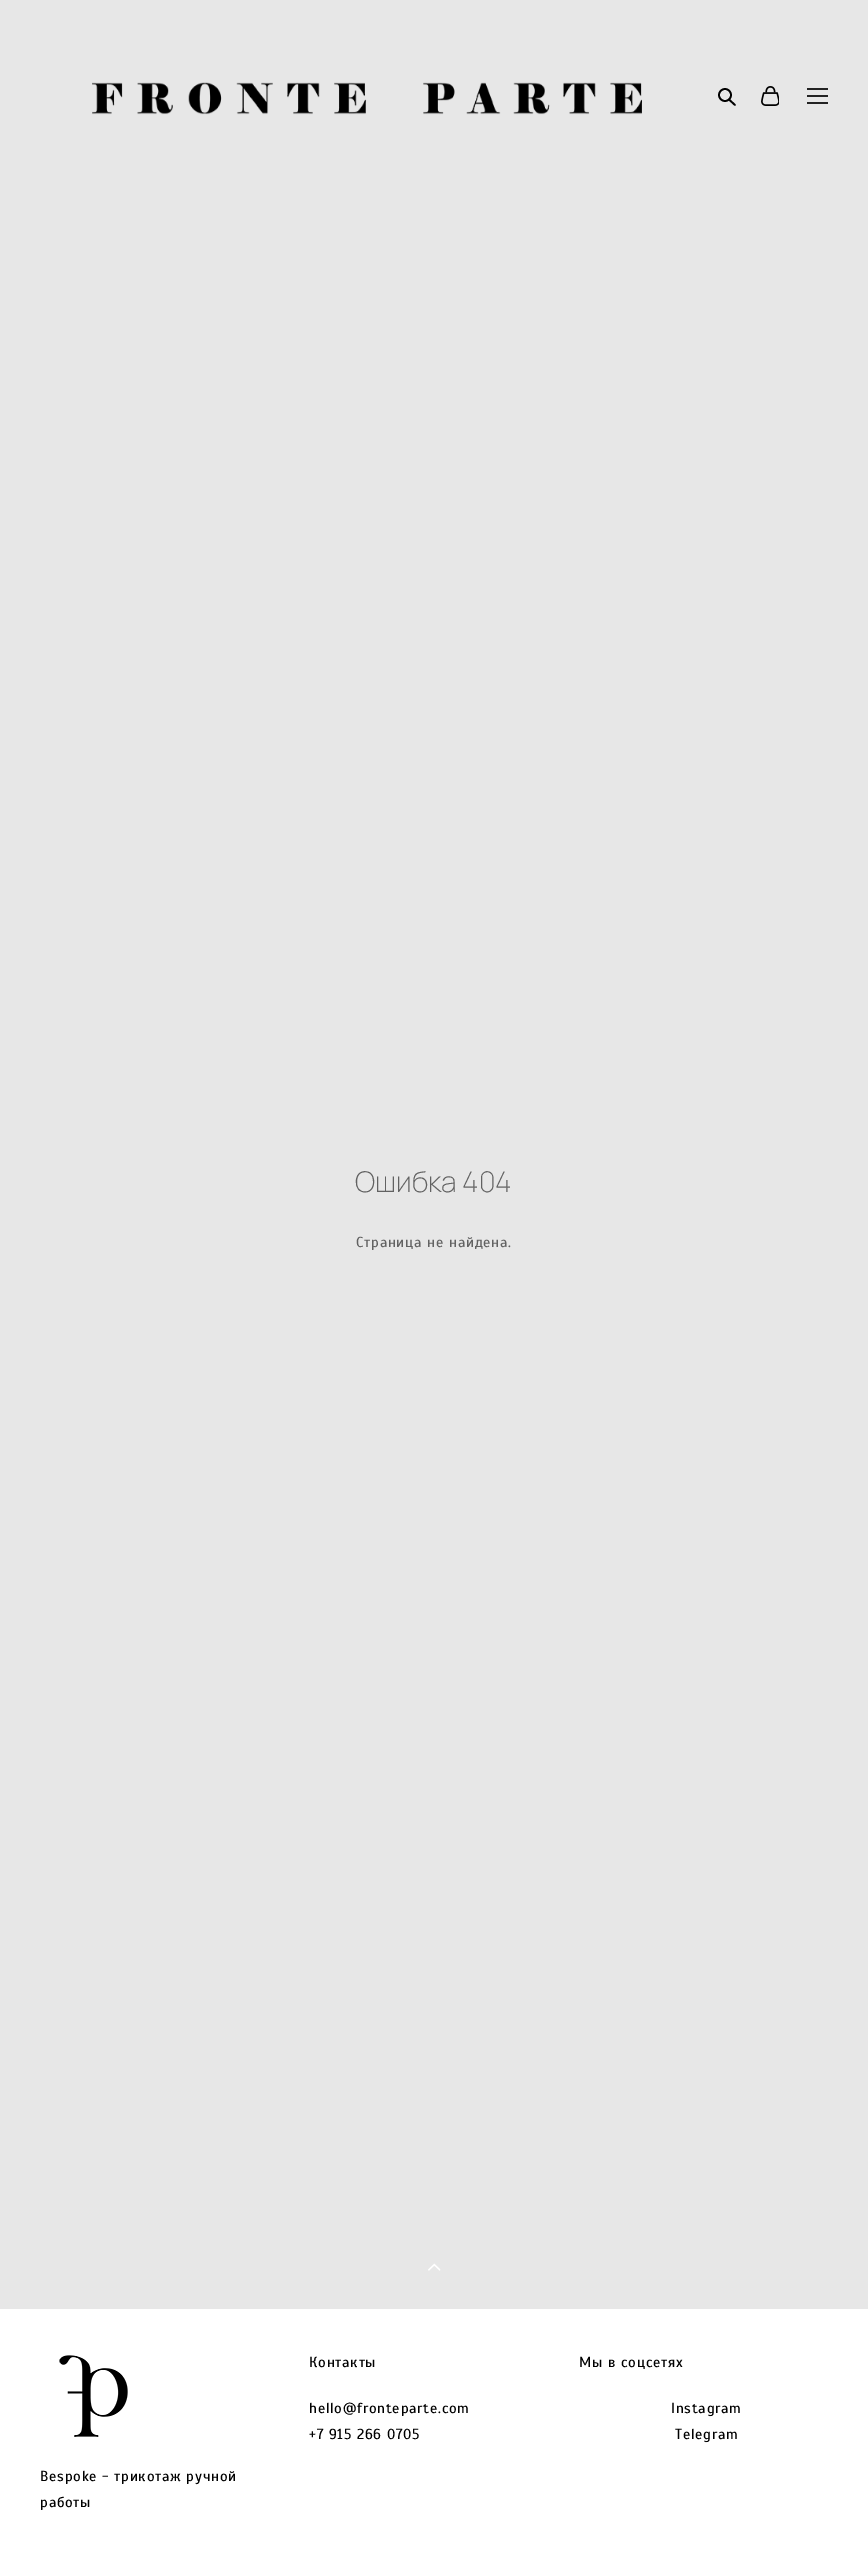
%!PS
<< /PageSize [868 2554] >> setpagedevice
/rgb { 3 { 255 div 3 1 roll } repeat setrgbcolor } def
/font { [ exch dup neg 0 0 3 -1 roll 0 0 ] selectfont } def
/circle { newpath 0 360 arc closepath } def
/picture { 5 dict begin { /h /w /y /x /name } { exch def } forall
  gsave x y translate w h scale
  w h 8 [w 0 0 h 0 0] name (r) file false 3 colorimage grestore end } def
0 2554 translate 1 -1 scale
4 setmiterlimit
231 231 231 rgb
0 0 868 2554 rectfill
(img/1.rgb) 92 82 550 33 picture
0 0 0 rgb
1.7 setlinewidth
725 95 6 circle stroke
1 setlinecap
1 setlinejoin
729 99.5 moveto 735 105 lineto stroke
(img/2.rgb) 761 86 18 20 picture
[
  [807 88 21 2 35 35 35]
  [807 95 21 2 35 35 35]
  [807 102 21 2 35 35 35]
] { aload pop rgb rectfill } forall
(img/3.rgb) 428 2263 13 8 picture
255 255 255 rgb
0 2309 868 245 rectfill
(img/4.rgb) 59 2355 69 82 picture
/Manrope-ExtraLight 28.5 font
98 98 98 rgb
355 1192 moveto (Ошибка 404) show
/Scada-Regular 14.5 font
356 1247 moveto 0.75 0 (Страница не найдена.) ashow
0 0 0 rgb
309 2367 moveto 0.75 0 (Контакты) ashow
309 2413 moveto 0.75 0 (hello@fronteparte.com) ashow
309 2439 moveto 0.75 0 (+7 915 266 0705) ashow
579 2367 moveto 0.75 0 (Мы в соцсетях) ashow
671 2413 moveto 0.75 0 (Instagram) ashow
675 2439 moveto 0.75 0 (Telegram) ashow
40 2481 moveto 0.75 0 (Bespoke - трикотаж ручной) ashow
40 2507 moveto 0.75 0 (работы) ashow
showpage
